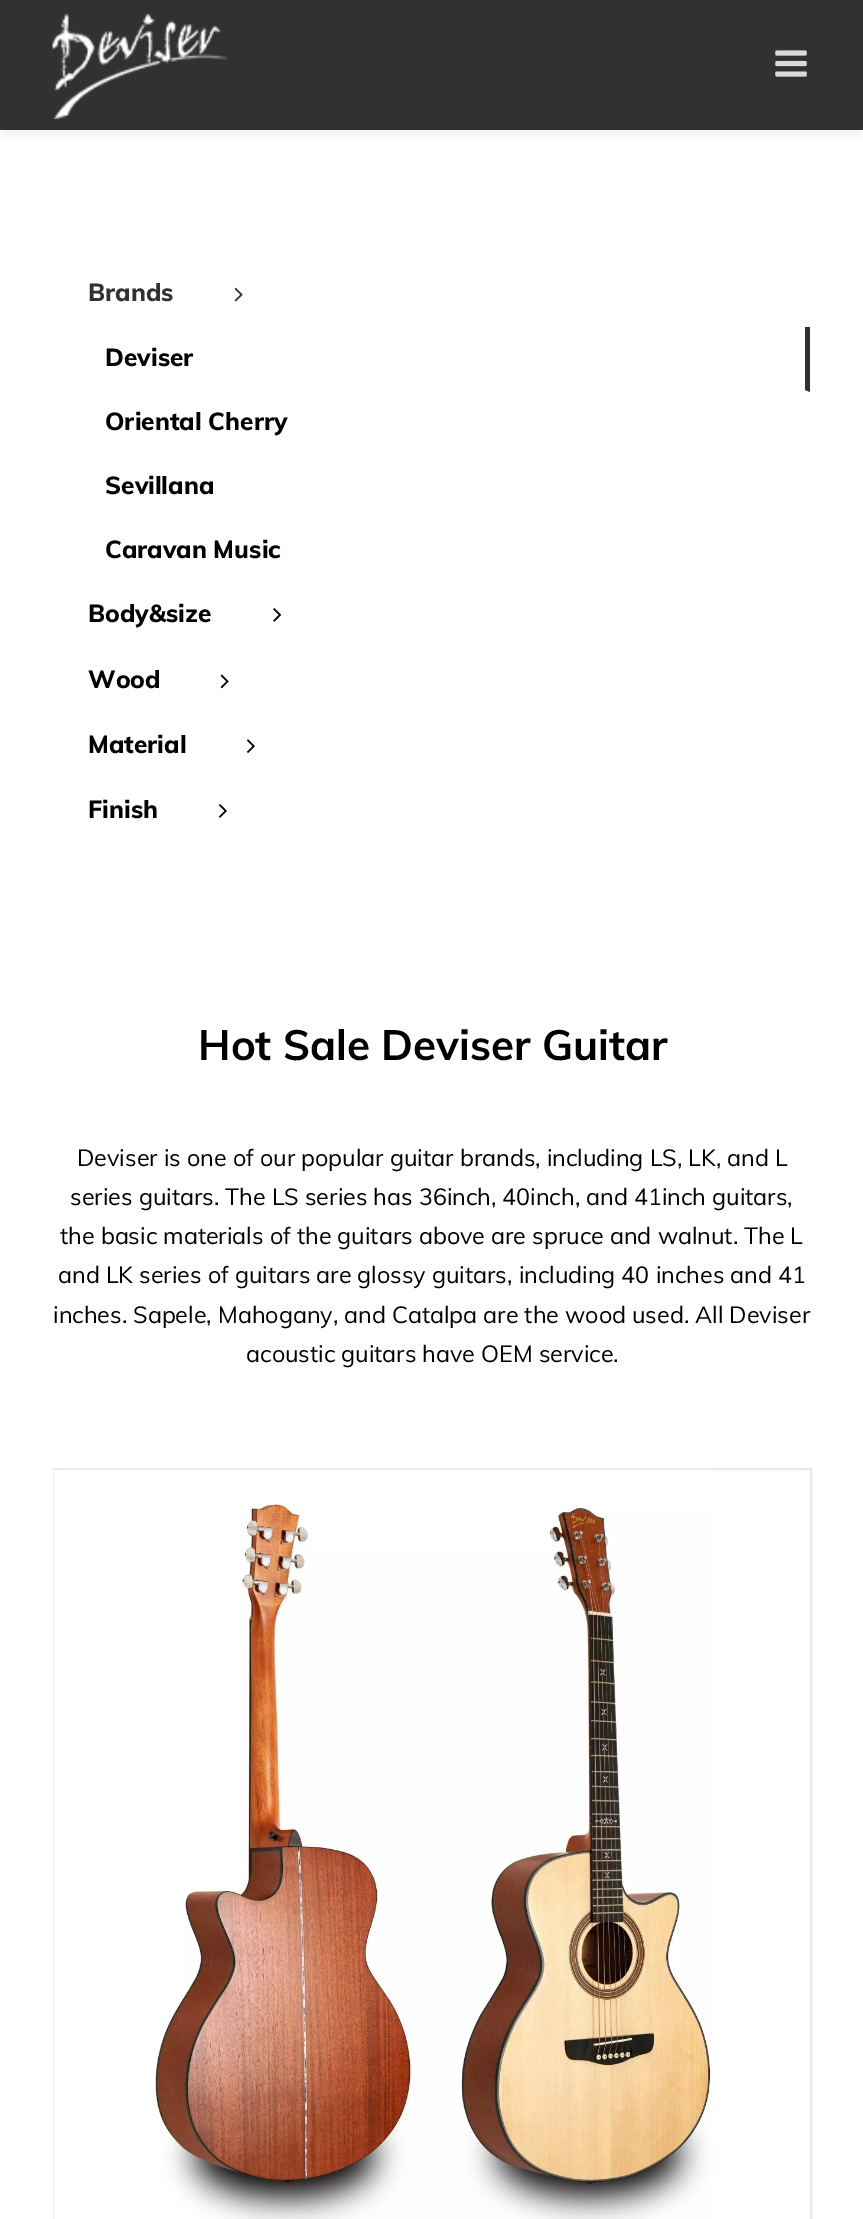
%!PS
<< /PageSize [863 2219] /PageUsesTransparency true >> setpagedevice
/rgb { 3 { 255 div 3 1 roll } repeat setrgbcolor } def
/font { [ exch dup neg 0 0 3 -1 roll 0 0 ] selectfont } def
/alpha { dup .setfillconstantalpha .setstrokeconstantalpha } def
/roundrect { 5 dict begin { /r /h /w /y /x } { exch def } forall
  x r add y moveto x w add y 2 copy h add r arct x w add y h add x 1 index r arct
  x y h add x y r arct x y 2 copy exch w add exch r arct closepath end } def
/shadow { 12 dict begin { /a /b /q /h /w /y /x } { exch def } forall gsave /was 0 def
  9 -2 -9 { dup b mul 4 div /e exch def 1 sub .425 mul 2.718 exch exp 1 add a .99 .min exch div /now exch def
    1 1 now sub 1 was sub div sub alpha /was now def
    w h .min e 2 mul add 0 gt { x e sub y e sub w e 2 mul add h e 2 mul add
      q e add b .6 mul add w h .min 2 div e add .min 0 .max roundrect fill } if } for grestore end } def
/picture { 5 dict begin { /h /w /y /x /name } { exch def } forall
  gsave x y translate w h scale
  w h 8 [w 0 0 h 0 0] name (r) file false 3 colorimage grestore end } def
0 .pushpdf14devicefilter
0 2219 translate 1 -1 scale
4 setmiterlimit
255 255 255 rgb
0 0 863 2219 rectfill
0 0 0 rgb
4 12 857 123 0 4.5 0.06 shadow
49 49 49 rgb
0 0 863 130 rectfill
(img/1.rgb) 52 14 176 105 picture
(img/2.rgb) 775 50 32 27 picture
(img/3.rgb) 234 287 9 15 picture
810 327 moveto 810 392 lineto 805 390 lineto 805 327 lineto closepath fill
(img/4.rgb) 273 608 9 14 picture
(img/5.rgb) 220 674 9 15 picture
(img/6.rgb) 247 739 8 14 picture
(img/7.rgb) 219 804 8 14 picture
233 234 238 rgb
2 setlinewidth
54 1469 757 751 rectstroke
(img/8.rgb) 54 1470 657 749 picture
/Muli-ExtraBold 24.5 font
49 49 49 rgb
88 301 moveto (Brands) show
0 0 0 rgb
[
  [(Deviser) 105 366]
  [(Oriental Cherry) 105 430]
  [(Sevillana) 105 494]
  [(Caravan Music) 105 558]
  [(Body&size) 88 622]
  [(Wood) 88 688]
  [(Material) 88 753]
  [(Finish) 88 818]
] { aload pop moveto show } forall
/Muli-Bold 42 font
198 1060 moveto (Hot Sale Deviser Guitar) show
/Muli-Regular 23.3 font
[
  [(Deviser is one of our popular guitar brands, including LS, LK, and L) 77 1166]
  [(series guitars. The LS series has 36inch, 40inch, and 41inch guitars,) 70 1205]
  [(the basic materials of the guitars above are spruce and walnut. The L) 60 1244]
  [(and LK series of guitars are glossy guitars, including 40 inches and 41) 58 1283]
  [(inches. Sapele, Mahogany, and Catalpa are the wood used. All Deviser) 53 1323]
  [(acoustic guitars have OEM service.) 246 1362]
] { aload pop moveto show } forall
.poppdf14devicefilter showpage
